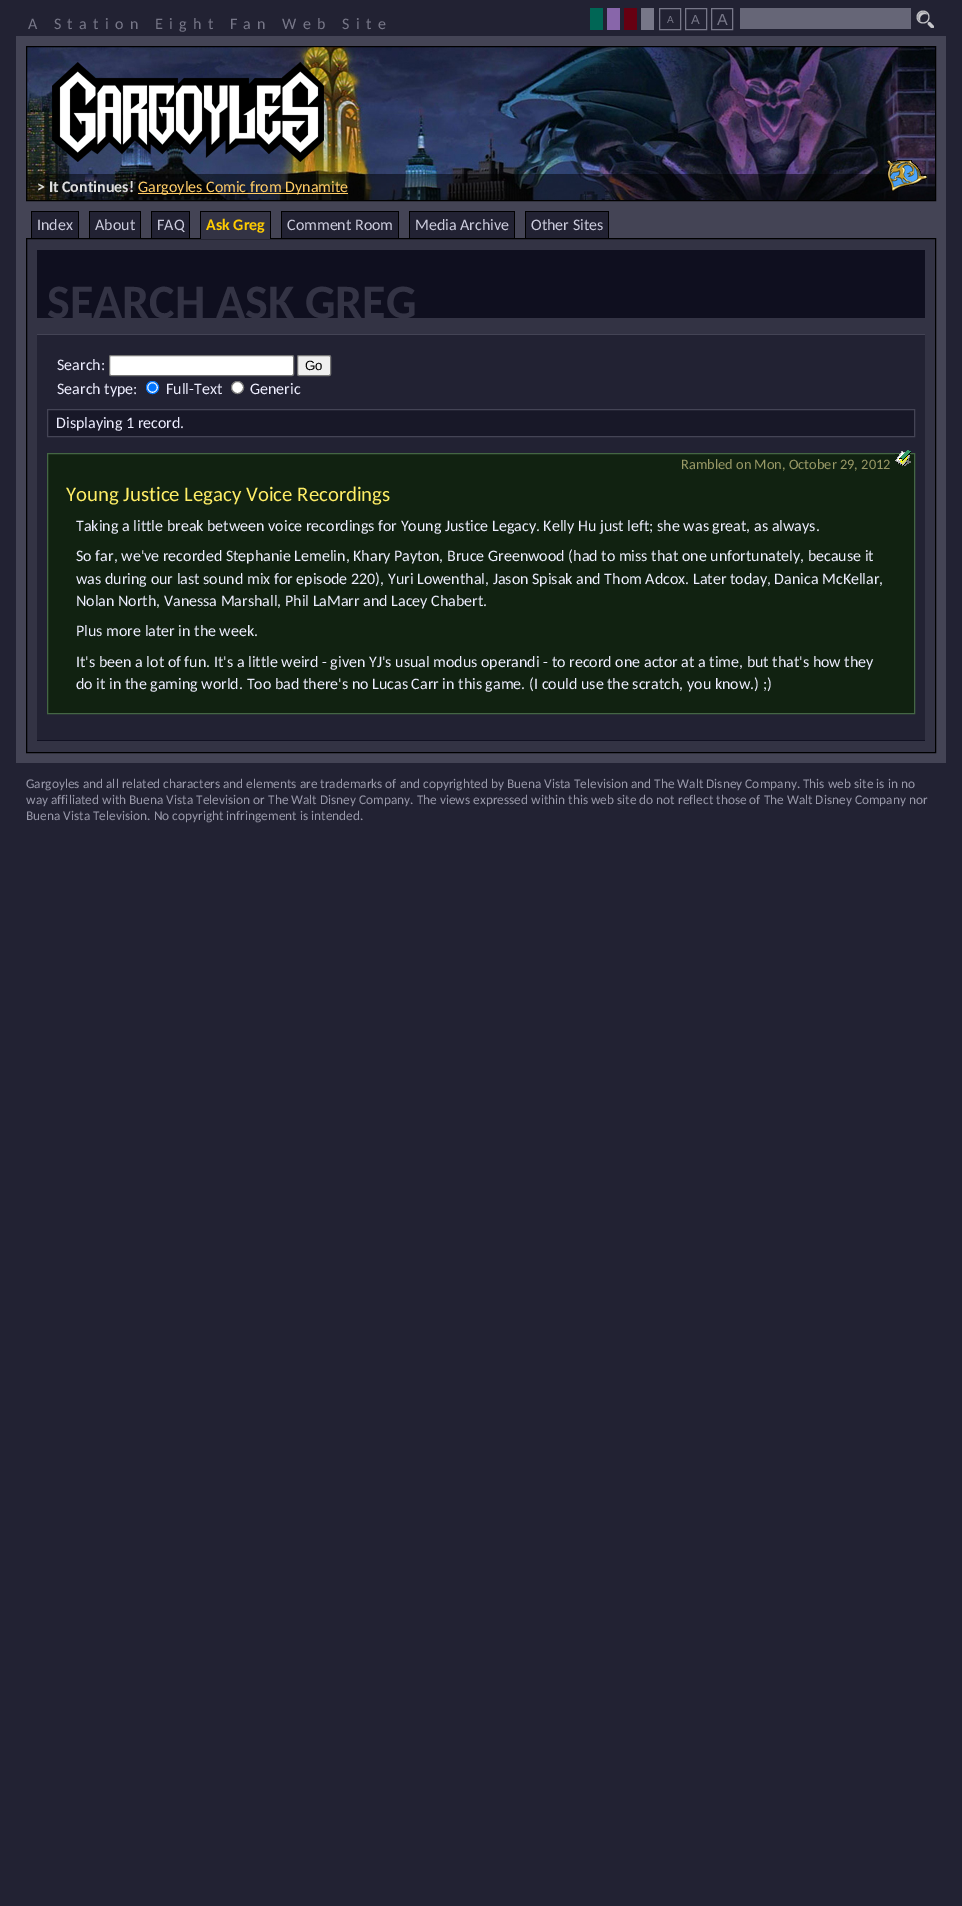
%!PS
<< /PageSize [962 1906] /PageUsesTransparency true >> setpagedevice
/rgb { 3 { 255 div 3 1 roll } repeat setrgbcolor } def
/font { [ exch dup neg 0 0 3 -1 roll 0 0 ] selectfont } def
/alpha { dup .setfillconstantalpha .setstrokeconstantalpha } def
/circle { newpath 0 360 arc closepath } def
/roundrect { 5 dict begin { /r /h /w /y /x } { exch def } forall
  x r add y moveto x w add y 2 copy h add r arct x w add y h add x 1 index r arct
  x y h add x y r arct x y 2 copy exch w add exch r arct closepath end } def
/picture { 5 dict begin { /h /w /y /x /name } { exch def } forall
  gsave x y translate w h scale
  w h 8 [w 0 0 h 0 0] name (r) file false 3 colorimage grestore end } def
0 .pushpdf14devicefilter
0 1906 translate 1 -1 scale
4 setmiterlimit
34 34 51 rgb
0 0 962 1906 rectfill
[
  [590 8 13 22 0 102 85]
  [607 8 13 22 136 102 170]
  [624 8 13 22 102 0 17]
  [641 8 13 22 119 119 136]
] { aload pop rgb rectfill } forall
659.5 8.5 21 21 rectstroke
685.5 8.5 21 21 rectstroke
711.5 8.5 21 21 rectstroke
102 102 119 rgb
740 8 171 21 rectfill
(img/1.rgb) 916 10 18 18 picture
68 68 85 rgb
16 36 930 727 rectfill
(img/2.rgb) 27 47 908 153 picture
0 0 0 rgb
26.5 46.5 909 154 rectstroke
(img/3.rgb) 52 62 272 100 picture
0.5 alpha
27 174 908 26 rectfill
1 alpha
255 204 102 rgb
138 193 210 1 rectfill
(img/4.rgb) 887 160 40 31 picture
[
  [32 212 46 26 34 34 51]
  [31 211 48 1 0 0 0]
  [78 211 1 27 0 0 0]
  [31 211 1 27 0 0 0]
  [90 212 50 26 34 34 51]
  [89 211 52 1 0 0 0]
  [140 211 1 27 0 0 0]
  [89 211 1 27 0 0 0]
  [152 212 37 26 34 34 51]
  [151 211 39 1 0 0 0]
  [189 211 1 27 0 0 0]
  [151 211 1 27 0 0 0]
] { aload pop rgb rectfill } forall
51 51 68 rgb
26.5 238.5 moveto 935.5 238.5 lineto 935.5 752.5 lineto 26.5 752.5 lineto closepath gsave fill grestore
0 0 0 rgb
stroke
[
  [201 212 69 27 51 51 68]
  [200 211 71 1 0 0 0]
  [270 211 1 28 0 0 0]
  [200 211 1 28 0 0 0]
  [282 212 116 26 34 34 51]
  [281 211 118 1 0 0 0]
  [398 211 1 27 0 0 0]
  [281 211 1 27 0 0 0]
  [410 212 104 26 34 34 51]
  [409 211 106 1 0 0 0]
  [514 211 1 27 0 0 0]
  [409 211 1 27 0 0 0]
  [526 212 82 26 34 34 51]
  [525 211 84 1 0 0 0]
  [608 211 1 27 0 0 0]
  [525 211 1 27 0 0 0]
  [37 250 888 68 15 15 31]
  [37 335 888 405 34 34 51]
  [37 334 888 1 68 68 85]
  [37 740 888 1 17 17 34]
] { aload pop rgb rectfill } forall
255 255 255 rgb
109.5 355.5 184 20 1.5 roundrect gsave fill grestore
118 118 118 rgb
stroke
239 239 239 rgb
297.5 355.5 33 20 1.5 roundrect gsave fill grestore
118 118 118 rgb
stroke
255 255 255 rgb
152.5 387.5 6 circle gsave fill grestore
0 117 255 rgb
stroke
152.5 387.5 4 circle fill
255 255 255 rgb
237.5 387.5 6 circle gsave fill grestore
118 118 118 rgb
stroke
24 24 40 rgb
47.5 409.5 moveto 914.5 409.5 lineto 914.5 436.5 lineto 47.5 436.5 lineto closepath gsave fill grestore
68 68 85 rgb
stroke
17 34 17 rgb
47.5 453.5 moveto 914.5 453.5 lineto 914.5 713.5 lineto 47.5 713.5 lineto closepath gsave fill grestore
68 102 68 rgb
stroke
(img/5.rgb) 895 450 16 16 picture
/Carlito-Regular 16 font
119 119 136 rgb
28 29 moveto 6.4 0 (A Station Eight Fan Web Site) ashow
/LiberationSans-Regular 10 font
667 23 moveto (A) show
/LiberationSans-Regular 13 font
691 24 moveto (A) show
/LiberationSans-Regular 16 font
717 25 moveto (A) show
/Carlito-Bold 16 font
221 221 221 rgb
37 192 moveto (> It Continues!) show
/Carlito-Regular 16 font
255 204 102 rgb
138 192 moveto (Gargoyles Comic from Dynamite) show
204 204 221 rgb
[
  [(Index) 37 230]
  [(About) 95 230]
  [(FAQ) 157 230]
] { aload pop moveto show } forall
/Carlito-Bold 16 font
255 204 0 rgb
206 230 moveto (Ask Greg) show
/Carlito-Regular 16 font
204 204 221 rgb
[
  [(Comment Room) 287 230]
  [(Media Archive) 415 230]
  [(Other Sites) 531 230]
] { aload pop moveto show } forall
/Carlito-Bold 48 font
51 51 68 rgb
47 318 moveto (SEARCH ASK GREG) show
/Carlito-Regular 16 font
238 238 255 rgb
57 370 moveto (Search:) show
/LiberationSans-Regular 13.33 font
0 0 0 rgb
305 370 moveto (Go) show
/Carlito-Regular 16 font
238 238 255 rgb
[
  [(Search type:) 57 394]
  [(Full-Text) 166 394]
  [(Generic) 250 394]
  [(Displaying 1 record.) 56 428]
] { aload pop moveto show } forall
/Carlito-Regular 14.4 font
153 153 102 rgb
681 469 moveto (Rambled on Mon, October 29, 2012) show
/Carlito-Regular 20.75 font
255 238 102 rgb
66 501 moveto (Young Justice Legacy Voice Recordings) show
/Carlito-Regular 16 font
238 238 255 rgb
[
  [(Taking a little break between voice recordings for Young Justice Legacy. Kelly Hu just left; she was great, as always.) 76 531]
  [(So far, we've recorded Stephanie Lemelin, Khary Payton, Bruce Greenwood \(had to miss that one unfortunately, because it) 76 561]
  [(was during our last sound mix for episode 220\), Yuri Lowenthal, Jason Spisak and Thom Adcox. Later today, Danica McKellar,) 76 584]
  [(Nolan North, Vanessa Marshall, Phil LaMarr and Lacey Chabert.) 76 606]
  [(Plus more later in the week.) 76 636]
  [(It's been a lot of fun. It's a little weird - given YJ's usual modus operandi - to record one actor at a time, but that's how they) 76 667]
  [(do it in the gaming world. Too bad there's no Lucas Carr in this game. \(I could use the scratch, you know.\) ;\)) 76 689]
] { aload pop moveto show } forall
/Carlito-Regular 13.33 font
153 153 170 rgb
[
  [(Gargoyles and all related characters and elements are trademarks of and copyrighted by Buena Vista Television and The Walt Disney Company. This web site is in no) 26 788]
  [(way affiliated with Buena Vista Television or The Walt Disney Company. The views expressed within this web site do not reflect those of The Walt Disney Company nor) 26 804]
  [(Buena Vista Television. No copyright infringement is intended.) 26 820]
] { aload pop moveto show } forall
.poppdf14devicefilter showpage
